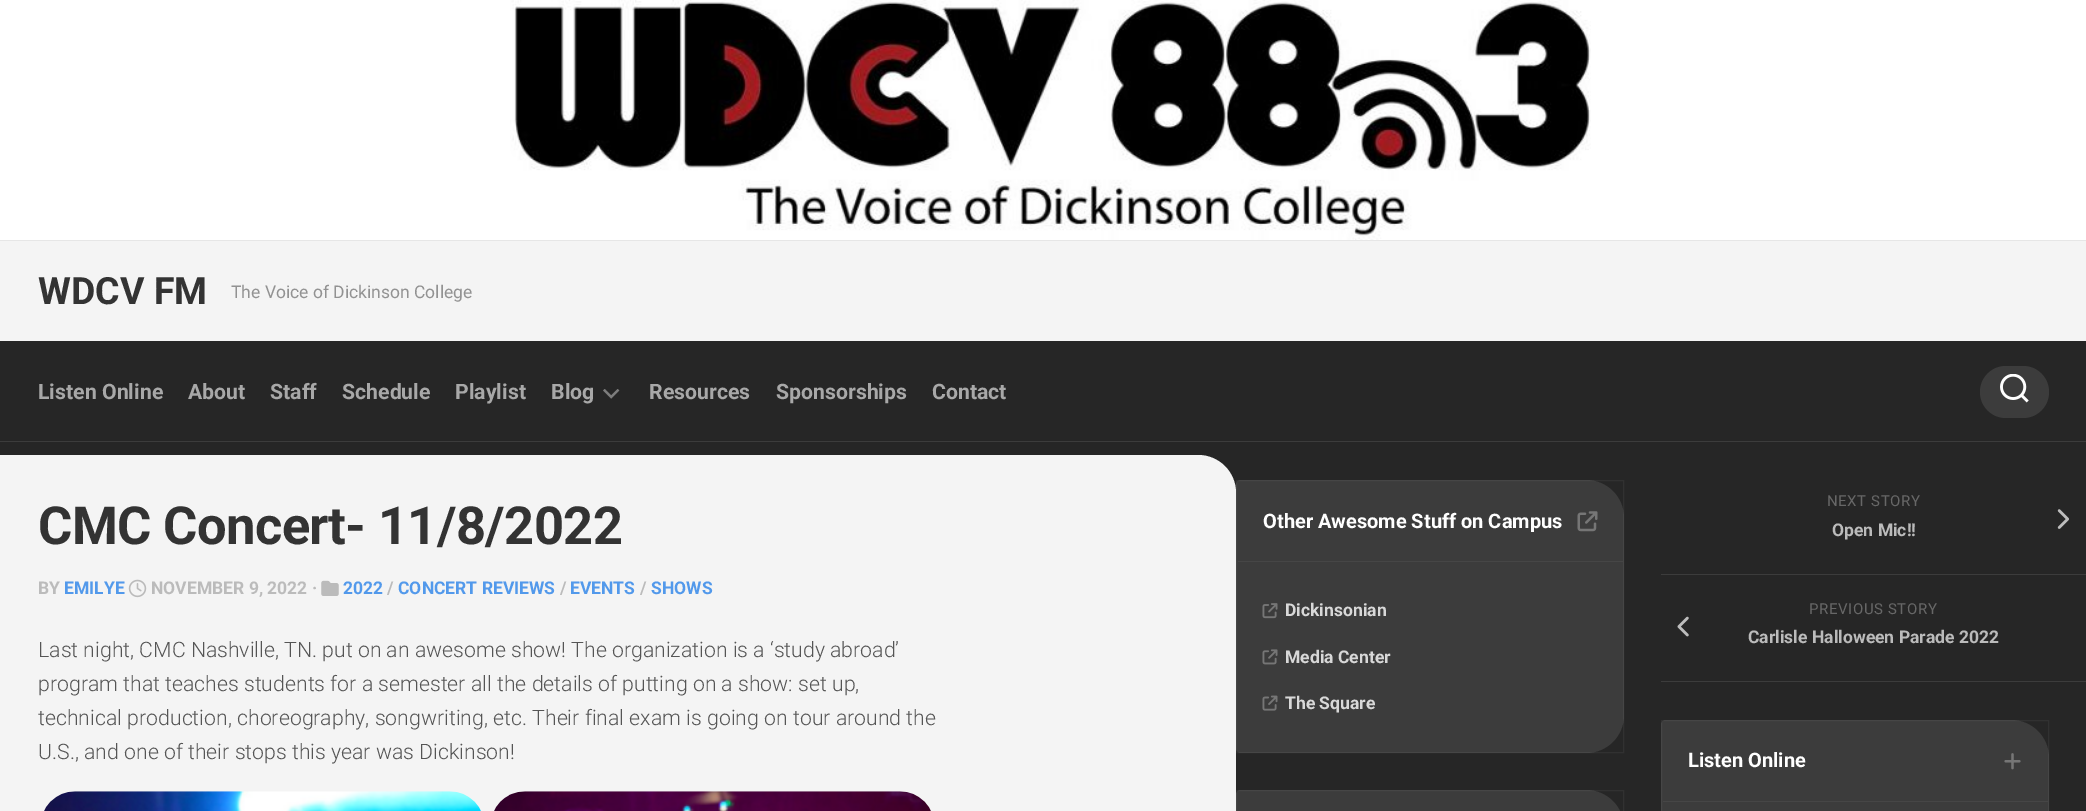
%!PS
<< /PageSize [2086 811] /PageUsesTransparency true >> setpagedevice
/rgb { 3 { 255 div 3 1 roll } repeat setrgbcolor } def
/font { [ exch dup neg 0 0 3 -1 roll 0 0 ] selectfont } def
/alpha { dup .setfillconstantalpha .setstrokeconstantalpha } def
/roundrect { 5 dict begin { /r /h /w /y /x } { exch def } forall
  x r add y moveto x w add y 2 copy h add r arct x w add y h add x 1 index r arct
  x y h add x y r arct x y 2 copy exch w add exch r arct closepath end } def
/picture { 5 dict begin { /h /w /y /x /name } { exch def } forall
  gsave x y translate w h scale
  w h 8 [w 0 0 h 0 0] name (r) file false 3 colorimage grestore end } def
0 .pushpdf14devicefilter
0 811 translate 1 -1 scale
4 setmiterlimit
244 244 244 rgb
0 0 2086 811 rectfill
255 255 255 rgb
0 0 2086 240 rectfill
230 230 230 rgb
0 240 2086 1 rectfill
(img/1.rgb) 510 0 1081 240 picture
38 38 38 rgb
0 341 2086 470 rectfill
60 60 60 rgb
0 441 2086 1 rectfill
(img/2.rgb) 603 389 17 10 picture
1980 366 69 52 26 roundrect fill
(img/3.rgb) 2000 374 29 29 picture
244 244 244 rgb
0 455 moveto 1198 455 lineto 1219 455 1236 472 1236 493 curveto 1236 811 lineto 1236 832 1219 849 1198 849 curveto 0 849 lineto closepath fill
(img/4.rgb) 128 579 19 19 picture
(img/5.rgb) 321 580 18 16 picture
(img/6.rgb) 44 791 437 20 picture
(img/7.rgb) 494 791 437 20 picture
60 60 60 rgb
1241 480 moveto 1586 480 lineto 1607 480 1624 497 1624 518 curveto 1624 715 lineto 1624 736 1607 753 1586 753 curveto 1241 753 lineto 1238 753 1236 751 1236 748 curveto 1236 485 lineto 1236 482 1238 480 1241 480 curveto closepath fill
0.05 alpha
255 255 255 rgb
1236.5 480.5 387 272 rectstroke
1 alpha
70 70 70 rgb
1238 561 385 1 rectfill
(img/8.rgb) 1577 511 21 21 picture
(img/9.rgb) 1262 603 16 16 picture
(img/10.rgb) 1262 649 16 16 picture
(img/11.rgb) 1262 695 16 16 picture
60 60 60 rgb
1241 790 moveto 1586 790 lineto 1607 790 1624 807 1624 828 curveto 1624 811 lineto 1624 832 1607 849 1586 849 curveto 1241 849 lineto 1238 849 1236 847 1236 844 curveto 1236 795 lineto 1236 792 1238 790 1241 790 curveto closepath fill
0.05 alpha
255 255 255 rgb
1236.5 790.5 387 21 rectstroke
1 alpha
60 60 60 rgb
1661 574 425 1 rectfill
(img/12.rgb) 2057 509 12 20 picture
1661 681 425 1 rectfill
(img/13.rgb) 1677 616 12 21 picture
1666 720 moveto 2011 720 lineto 2032 720 2049 737 2049 758 curveto 2049 811 lineto 2049 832 2032 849 2011 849 curveto 1666 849 lineto 1663 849 1661 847 1661 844 curveto 1661 725 lineto 1661 722 1663 720 1666 720 curveto closepath fill
0.05 alpha
255 255 255 rgb
1661.5 720.5 387 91 rectstroke
1 alpha
70 70 70 rgb
1663 801 385 1 rectfill
(img/14.rgb) 2004 753 17 17 picture
/Roboto-Bold 37.5 font
51 51 51 rgb
38 304 moveto (WDCV FM) show
/Roboto-Regular 17.5 font
146 146 146 rgb
231 298 moveto (The Voice of Dickinson College) show
/Roboto-Bold 21.25 font
168 168 168 rgb
[
  [(Listen Online) 38 399]
  [(About) 188 399]
  [(Staff) 270 399]
  [(Schedule) 342 399]
  [(Playlist) 455 399]
  [(Blog) 551 399]
  [(Resources) 649 399]
  [(Sponsorships) 776 399]
  [(Contact) 932 399]
] { aload pop moveto show } forall
/Roboto-Bold 52.5 font
51 51 51 rgb
38 544 moveto -0.6 0 (CMC Concert- 11/8/2022) ashow
/Roboto-Bold 17.5 font
187 187 187 rgb
38 594 moveto (BY) show
82 153 235 rgb
64 594 moveto (EMILYE) show
187 187 187 rgb
151 594 moveto (NOVEMBER 9, 2022 ·) show
82 153 235 rgb
343 594 moveto (2022) show
187 187 187 rgb
387 594 moveto (/) show
82 153 235 rgb
398 594 moveto (CONCERT REVIEWS) show
187 187 187 rgb
560 594 moveto (/) show
82 153 235 rgb
570 594 moveto (EVENTS) show
187 187 187 rgb
640 594 moveto (/) show
82 153 235 rgb
651 594 moveto (SHOWS) show
/Roboto-Light 21.25 font
85 85 85 rgb
[
  [(Last night, CMC Nashville, TN. put on an awesome show! The organization is a ‘study abroad’) 38 657]
  [(program that teaches students for a semester all the details of putting on a show: set up,) 38 691]
  [(technical production, choreography, songwriting, etc. Their final exam is going on tour around the) 38 725]
  [(U.S., and one of their stops this year was Dickinson!) 38 759]
] { aload pop moveto show } forall
/Roboto-Bold 20 font
255 255 255 rgb
1263 528 moveto (Other Awesome Stuff on Campus) show
/Roboto-Bold 17.5 font
216 216 216 rgb
[
  [(Dickinsonian) 1285 616]
  [(Media Center) 1285 663]
  [(The Square) 1285 709]
] { aload pop moveto show } forall
/Roboto-Regular 15 font
103 103 103 rgb
1827 506 moveto 0.6 0 (NEXT STORY) ashow
/Roboto-Bold 17.5 font
187 187 187 rgb
1832 536 moveto (Open Mic!!) show
/Roboto-Regular 15 font
103 103 103 rgb
1809 614 moveto 0.6 0 (PREVIOUS STORY) ashow
/Roboto-Bold 17.5 font
187 187 187 rgb
1748 643 moveto (Carlisle Halloween Parade 2022) show
/Roboto-Bold 20 font
255 255 255 rgb
1688 767 moveto (Listen Online) show
.poppdf14devicefilter showpage
